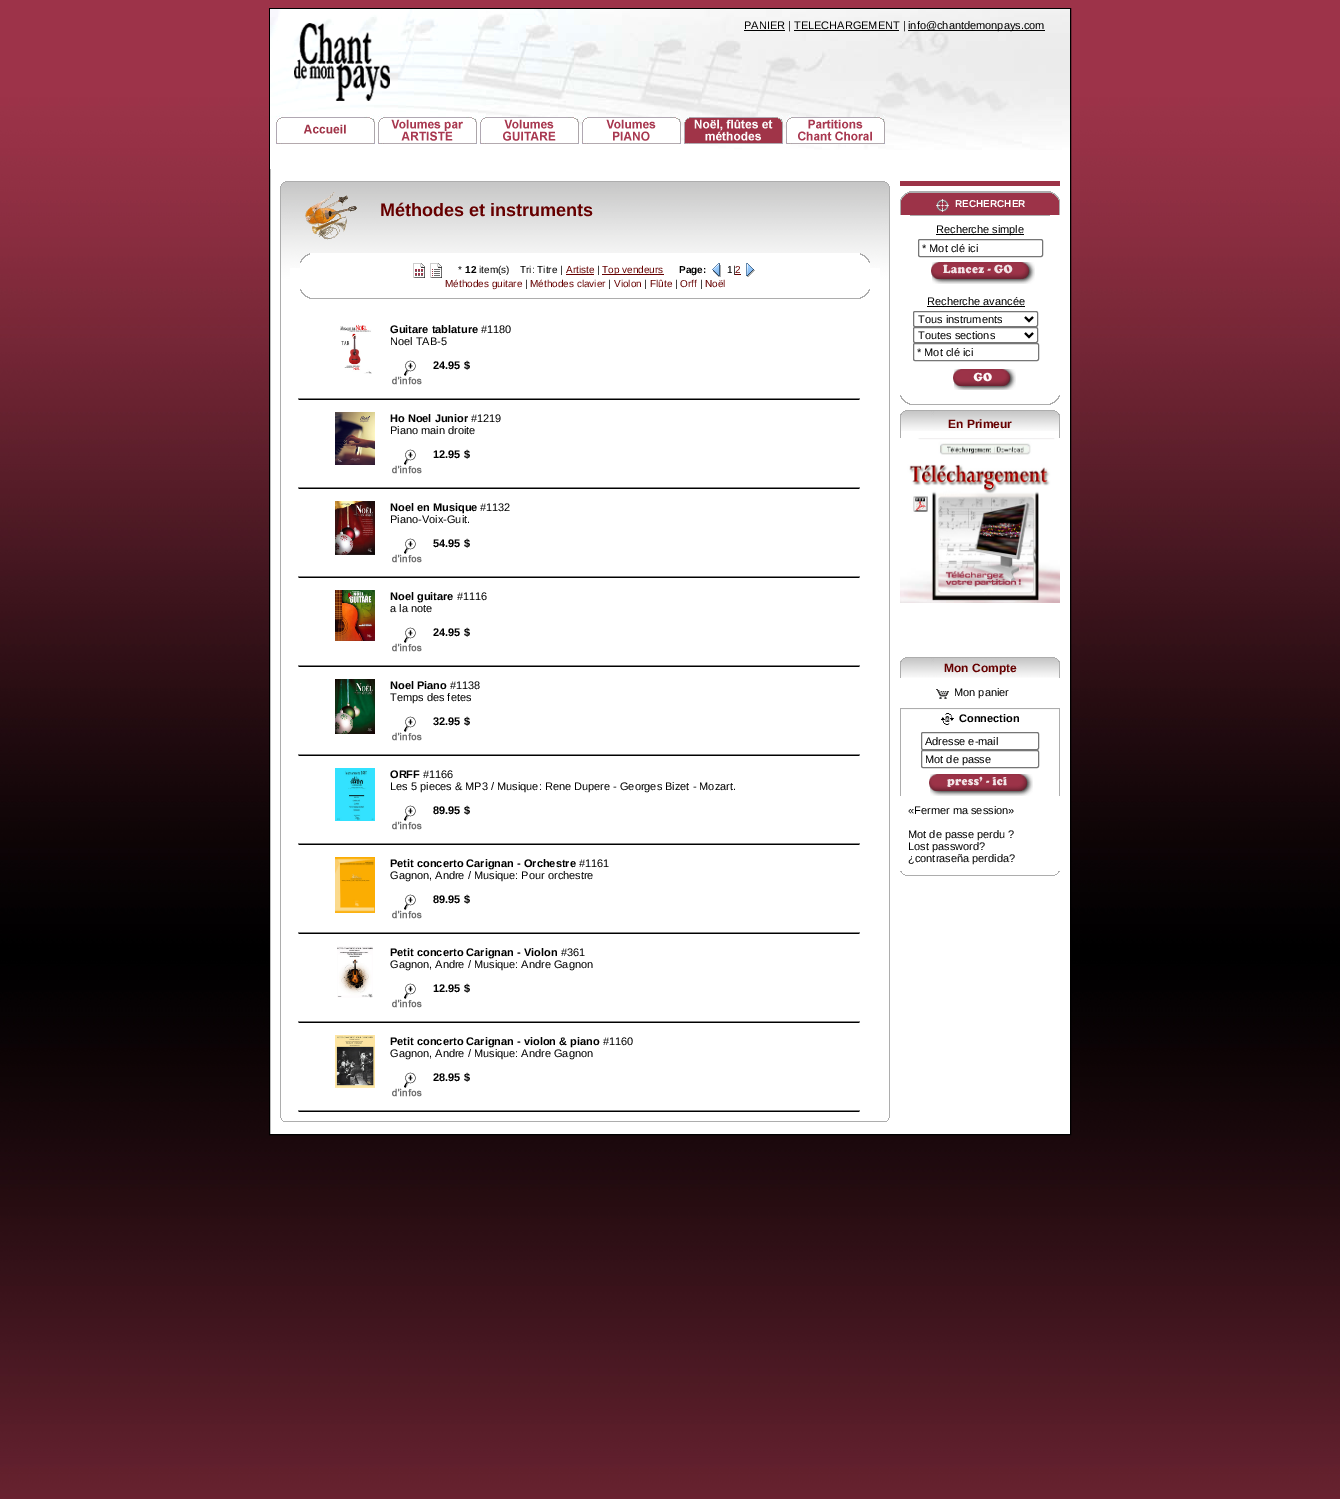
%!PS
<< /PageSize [1340 1499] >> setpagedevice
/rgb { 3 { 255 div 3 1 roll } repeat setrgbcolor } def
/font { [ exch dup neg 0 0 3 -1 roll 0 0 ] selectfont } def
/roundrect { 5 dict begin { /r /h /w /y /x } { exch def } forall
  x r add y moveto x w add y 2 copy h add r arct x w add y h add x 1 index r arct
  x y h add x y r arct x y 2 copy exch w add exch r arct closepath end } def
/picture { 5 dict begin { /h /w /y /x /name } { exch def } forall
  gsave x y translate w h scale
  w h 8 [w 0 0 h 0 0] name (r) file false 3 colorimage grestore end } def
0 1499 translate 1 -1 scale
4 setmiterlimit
255 255 255 rgb
0 0 1340 1499 rectfill
(img/1.rgb) 0 0 1340 1499 picture
270 169 800 965 rectfill
0 0 0 rgb
269.5 8.5 801 1126 rectstroke
255 255 255 rgb
270 150 800 19 rectfill
(img/2.rgb) 270 9 800 141 picture
(img/3.rgb) 294 23 96 78 picture
[
  [744 30 41 1 0 0 0]
  [908 30 137 1 0 0 0]
  [794 30 105 1 0 0 0]
] { aload pop rgb rectfill } forall
(img/4.rgb) 276 115 99 29 picture
(img/5.rgb) 378 115 99 29 picture
(img/6.rgb) 480 115 99 29 picture
(img/7.rgb) 582 115 99 29 picture
(img/8.rgb) 684 115 99 29 picture
(img/9.rgb) 786 115 99 29 picture
(img/10.rgb) 280 181 10 10 picture
(img/11.rgb) 290 181 590 10 picture
(img/12.rgb) 880 181 10 10 picture
156 51 72 rgb
900 181 160 5 rectfill
(img/13.rgb) 280 191 10 921 picture
(img/14.rgb) 290 191 590 77 picture
(img/15.rgb) 305 192 52 48 picture
(img/16.rgb) 300 253 10 10 picture
255 255 255 rgb
310 253 550 10 rectfill
(img/17.rgb) 860 253 10 10 picture
300 263 570 5 rectfill
(img/18.rgb) 413 263 12 15 picture
(img/19.rgb) 430 263 12 15 picture
102 0 0 rgb
566 274 28 1 rectfill
602 274 62 1 rectfill
(img/20.rgb) 712 263 9 14 picture
735 274 6 1 rectfill
(img/21.rgb) 746 263 9 14 picture
(img/22.rgb) 300 289 10 10 picture
173 173 173 rgb
310 298 550 1 rectfill
(img/23.rgb) 860 289 10 10 picture
(img/24.rgb) 340 324 32 50 picture
(img/25.rgb) 392 360 30 25 picture
[
  [299 399 560 1 0 0 0]
  [298 398 562 1 128 128 128]
  [859 398 1 2 128 128 128]
  [298 398 1 2 128 128 128]
] { aload pop rgb rectfill } forall
(img/26.rgb) 335 412 40 53 picture
(img/25.rgb) 392 449 30 25 picture
[
  [299 488 560 1 0 0 0]
  [298 487 562 1 128 128 128]
  [859 487 1 2 128 128 128]
  [298 487 1 2 128 128 128]
] { aload pop rgb rectfill } forall
(img/27.rgb) 335 501 40 54 picture
(img/25.rgb) 392 538 30 25 picture
[
  [299 577 560 1 0 0 0]
  [298 576 562 1 128 128 128]
  [859 576 1 2 128 128 128]
  [298 576 1 2 128 128 128]
] { aload pop rgb rectfill } forall
(img/28.rgb) 335 590 40 51 picture
(img/25.rgb) 392 627 30 25 picture
[
  [299 666 560 1 0 0 0]
  [298 665 562 1 128 128 128]
  [859 665 1 2 128 128 128]
  [298 665 1 2 128 128 128]
] { aload pop rgb rectfill } forall
(img/29.rgb) 335 679 40 55 picture
(img/25.rgb) 392 716 30 25 picture
[
  [299 755 560 1 0 0 0]
  [298 754 562 1 128 128 128]
  [859 754 1 2 128 128 128]
  [298 754 1 2 128 128 128]
] { aload pop rgb rectfill } forall
(img/30.rgb) 335 768 40 53 picture
(img/25.rgb) 392 805 30 25 picture
[
  [299 844 560 1 0 0 0]
  [298 843 562 1 128 128 128]
  [859 843 1 2 128 128 128]
  [298 843 1 2 128 128 128]
] { aload pop rgb rectfill } forall
(img/31.rgb) 335 857 40 56 picture
(img/25.rgb) 392 894 30 25 picture
[
  [299 933 560 1 0 0 0]
  [298 932 562 1 128 128 128]
  [859 932 1 2 128 128 128]
  [298 932 1 2 128 128 128]
] { aload pop rgb rectfill } forall
(img/32.rgb) 337 946 36 52 picture
(img/25.rgb) 392 983 30 25 picture
[
  [299 1022 560 1 0 0 0]
  [298 1021 562 1 128 128 128]
  [859 1021 1 2 128 128 128]
  [298 1021 1 2 128 128 128]
] { aload pop rgb rectfill } forall
(img/33.rgb) 335 1035 40 53 picture
(img/25.rgb) 392 1072 30 25 picture
[
  [299 1111 560 1 0 0 0]
  [298 1110 562 1 128 128 128]
  [859 1110 1 2 128 128 128]
  [298 1110 1 2 128 128 128]
] { aload pop rgb rectfill } forall
(img/34.rgb) 880 191 10 921 picture
(img/35.rgb) 900 191 10 24 picture
(img/36.rgb) 910 191 140 24 picture
(img/37.rgb) 936 199 13 13 picture
(img/38.rgb) 1050 191 10 24 picture
173 173 173 rgb
910 215 140 1 rectfill
0 0 0 rgb
936 234 88 1 rectfill
118 118 118 rgb
918.5 239.5 124 17 1.5 roundrect stroke
(img/39.rgb) 931 262 104 22 picture
0 0 0 rgb
927 306 98 1 rectfill
118 118 118 rgb
913.5 311.5 124 15 1.5 roundrect stroke
0 0 0 rgb
2 setlinewidth
1025 317 moveto 1029 321 lineto 1033 317 lineto stroke
118 118 118 rgb
1 setlinewidth
913.5 327.5 124 15 1.5 roundrect stroke
0 0 0 rgb
2 setlinewidth
1025 333 moveto 1029 337 lineto 1033 333 lineto stroke
118 118 118 rgb
1 setlinewidth
913.5 343.5 125 17 1.5 roundrect stroke
(img/40.rgb) 953 369 63 21 picture
(img/22.rgb) 900 395 10 10 picture
173 173 173 rgb
910 404 140 1 rectfill
(img/23.rgb) 1050 395 10 10 picture
(img/41.rgb) 900 410 160 28 picture
(img/42.rgb) 900 438 160 165 picture
(img/43.rgb) 900 657 160 21 picture
(img/44.rgb) 936 689 13 10 picture
(img/45.rgb) 900 708 160 88 picture
(img/46.rgb) 941 713 13 12 picture
118 118 118 rgb
921.5 732.5 117 17 1.5 roundrect stroke
921.5 750.5 117 17 1.5 roundrect stroke
(img/47.rgb) 929 774 104 22 picture
(img/48.rgb) 900 871 160 5 picture
(img/49.rgb) 280 1112 10 10 picture
173 173 173 rgb
290 1121 590 1 rectfill
(img/50.rgb) 880 1112 10 10 picture
/LiberationSans-Regular 11 font
0 0 0 rgb
744 29 moveto (PANIER | TELECHARGEMENT |) show
908 29 moveto (info@chantdemonpays.com) show
/LiberationSans-Bold 18 font
102 0 0 rgb
380 216 moveto (Méthodes et instruments) show
/LiberationSans-Regular 10 font
0 0 0 rgb
458 273 moveto (*) show
/LiberationSans-Bold 10 font
465 273 moveto (12) show
/LiberationSans-Regular 10 font
479 273 moveto (item\(s\)) show
520 273 moveto (Tri: Titre |) show
102 0 0 rgb
566 273 moveto (Artiste) show
0 0 0 rgb
597 273 moveto (|) show
102 0 0 rgb
602 273 moveto (Top vendeurs) show
/LiberationSans-Bold 10 font
0 0 0 rgb
679 273 moveto (Page:) show
/LiberationSans-Regular 10 font
727 273 moveto (1|) show
102 0 0 rgb
735 273 moveto (2) show
445 287 moveto (Méthodes guitare) show
0 0 0 rgb
525 287 moveto (|) show
102 0 0 rgb
530 287 moveto (Méthodes clavier) show
0 0 0 rgb
608 287 moveto (|) show
102 0 0 rgb
614 287 moveto (Violon) show
0 0 0 rgb
644 287 moveto (|) show
102 0 0 rgb
650 287 moveto (Flûte) show
0 0 0 rgb
675 287 moveto (|) show
102 0 0 rgb
680 287 moveto (Orff) show
0 0 0 rgb
700 287 moveto (|) show
102 0 0 rgb
705 287 moveto (Noël) show
/LiberationSans-Bold 11 font
0 0 0 rgb
390 333 moveto (Guitare tablature) show
/LiberationSans-Regular 11 font
481 333 moveto (#1180) show
390 345 moveto (Noel TAB-5) show
/LiberationSans-Bold 11 font
433 369 moveto (24.95 $) show
390 422 moveto (Ho Noel Junior) show
/LiberationSans-Regular 11 font
471 422 moveto (#1219) show
390 434 moveto (Piano main droite) show
/LiberationSans-Bold 11 font
433 458 moveto (12.95 $) show
390 511 moveto (Noel en Musique) show
/LiberationSans-Regular 11 font
480 511 moveto (#1132) show
390 523 moveto (Piano-Voix-Guit.) show
/LiberationSans-Bold 11 font
433 547 moveto (54.95 $) show
390 600 moveto (Noel guitare) show
/LiberationSans-Regular 11 font
457 600 moveto (#1116) show
390 612 moveto (a la note) show
/LiberationSans-Bold 11 font
433 636 moveto (24.95 $) show
390 689 moveto (Noel Piano) show
/LiberationSans-Regular 11 font
450 689 moveto (#1138) show
390 701 moveto (Temps des fetes) show
/LiberationSans-Bold 11 font
433 725 moveto (32.95 $) show
390 778 moveto (ORFF) show
/LiberationSans-Regular 11 font
423 778 moveto (#1166) show
390 790 moveto (Les 5 pieces & MP3 / Musique: Rene Dupere - Georges Bizet - Mozart.) show
/LiberationSans-Bold 11 font
433 814 moveto (89.95 $) show
390 867 moveto (Petit concerto Carignan - Orchestre) show
/LiberationSans-Regular 11 font
579 867 moveto (#1161) show
390 879 moveto (Gagnon, Andre / Musique: Pour orchestre) show
/LiberationSans-Bold 11 font
433 903 moveto (89.95 $) show
390 956 moveto (Petit concerto Carignan - Violon) show
/LiberationSans-Regular 11 font
561 956 moveto (#361) show
390 968 moveto (Gagnon, Andre / Musique: Andre Gagnon) show
/LiberationSans-Bold 11 font
433 992 moveto (12.95 $) show
390 1045 moveto (Petit concerto Carignan - violon & piano) show
/LiberationSans-Regular 11 font
603 1045 moveto (#1160) show
390 1057 moveto (Gagnon, Andre / Musique: Andre Gagnon) show
/LiberationSans-Bold 11 font
433 1081 moveto (28.95 $) show
/LiberationSans-Bold 10 font
255 255 255 rgb
955 207 moveto (RECHERCHER) show
/LiberationSans-Regular 11 font
0 0 0 rgb
[
  [(Recherche simple) 936 233]
  [(* Mot clé ici) 922 252]
  [(Recherche avancée) 927 305]
  [(Tous instruments) 918 323]
  [(Toutes sections) 918 339]
  [(* Mot clé ici) 917 356]
] { aload pop moveto show } forall
/LiberationSans-Bold 12 font
102 0 0 rgb
948 428 moveto (En Primeur) show
944 672 moveto (Mon Compte) show
/LiberationSans-Regular 11 font
0 0 0 rgb
954 696 moveto (Mon panier) show
/LiberationSans-Bold 11 font
959 722 moveto (Connection) show
/LiberationSans-Regular 11 font
[
  [(Adresse e-mail) 925 745]
  [(Mot de passe) 925 763]
  [(«Fermer ma session») 908 814]
  [(Mot de passe perdu ?) 908 838]
  [(Lost password?) 908 850]
  [(¿contraseña perdida?) 908 862]
] { aload pop moveto show } forall
showpage
